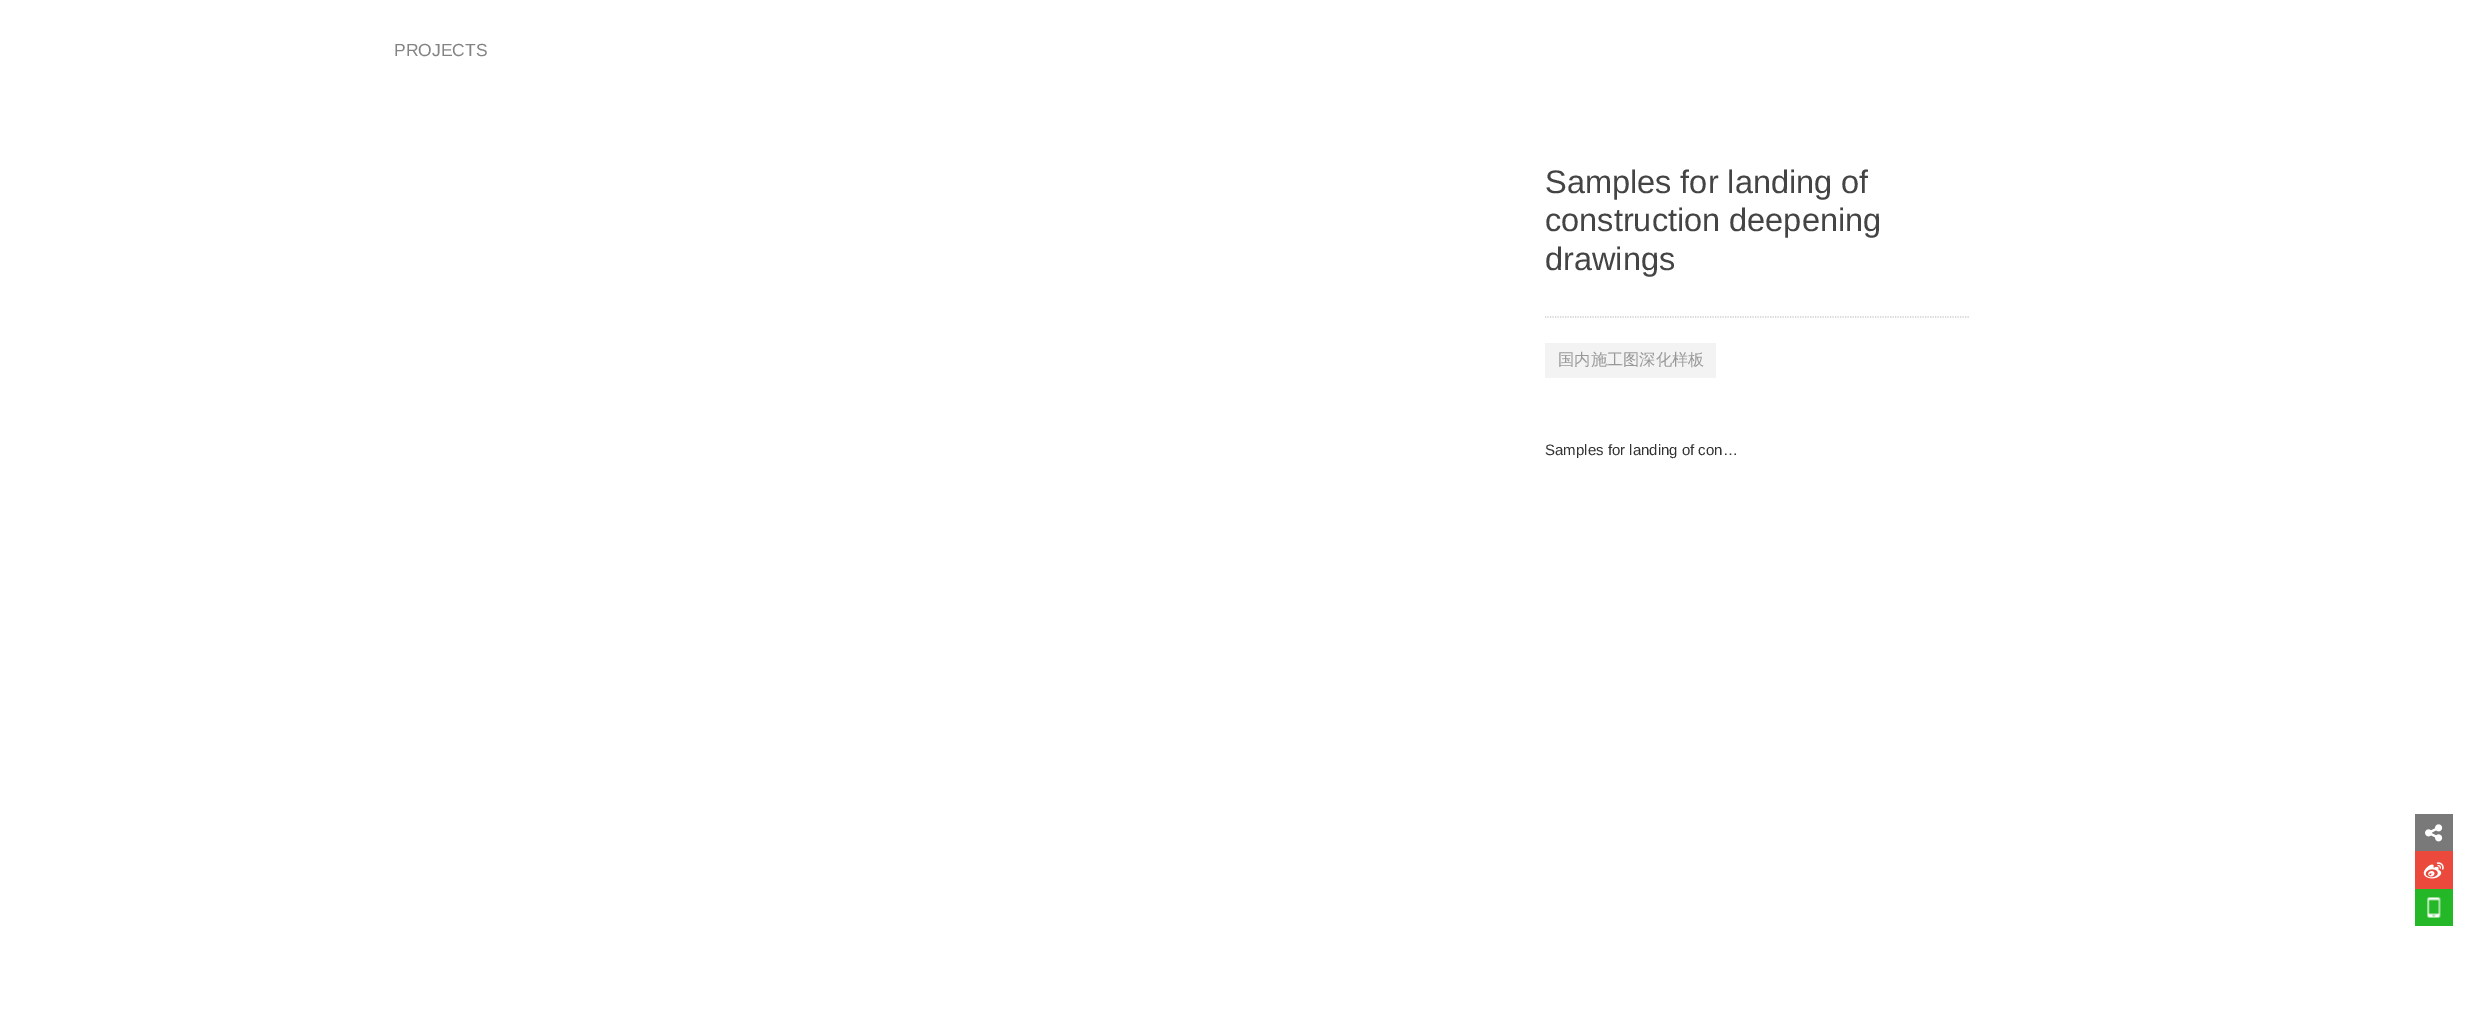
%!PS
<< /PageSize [2465 1013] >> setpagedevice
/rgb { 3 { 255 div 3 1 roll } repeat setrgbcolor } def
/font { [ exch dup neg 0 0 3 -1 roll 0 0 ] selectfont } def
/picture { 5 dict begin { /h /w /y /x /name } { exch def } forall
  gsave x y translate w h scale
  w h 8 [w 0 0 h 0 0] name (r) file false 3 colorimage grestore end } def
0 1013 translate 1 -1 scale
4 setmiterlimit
255 255 255 rgb
0 0 2465 1013 rectfill
204 204 204 rgb
1.2 setlinewidth
[1.25 1.25] 0 setdash
1545 317 moveto 1970 317 lineto stroke
243 243 243 rgb
1545 343 171 35 rectfill
121 121 121 rgb
2415 814 38 37 rectfill
(img/1.rgb) 2425 824 18 18 picture
234 73 60 rgb
2415 851 38 38 rectfill
(img/2.rgb) 2423 862 21 17 picture
36 183 39 rgb
2415 889 38 37 rectfill
(img/3.rgb) 2427 897 14 21 picture
/LiberationSans-Regular 17.5 font
131 131 131 rgb
394 56 moveto (PROJECTS) show
/LiberationSans-Regular 32.5 font
68 68 68 rgb
[
  [(Samples for landing of) 1545 193]
  [(construction deepening) 1545 231]
  [(drawings) 1545 270]
] { aload pop moveto show } forall
/WenQuanYiZenHei-Medium 16.25 font
152 152 152 rgb
1558 365 moveto (国内施工图深化样板) show
/LiberationSans-Regular 15 font
51 51 51 rgb
1545 455 moveto (Samples for landing of con…) show
showpage
